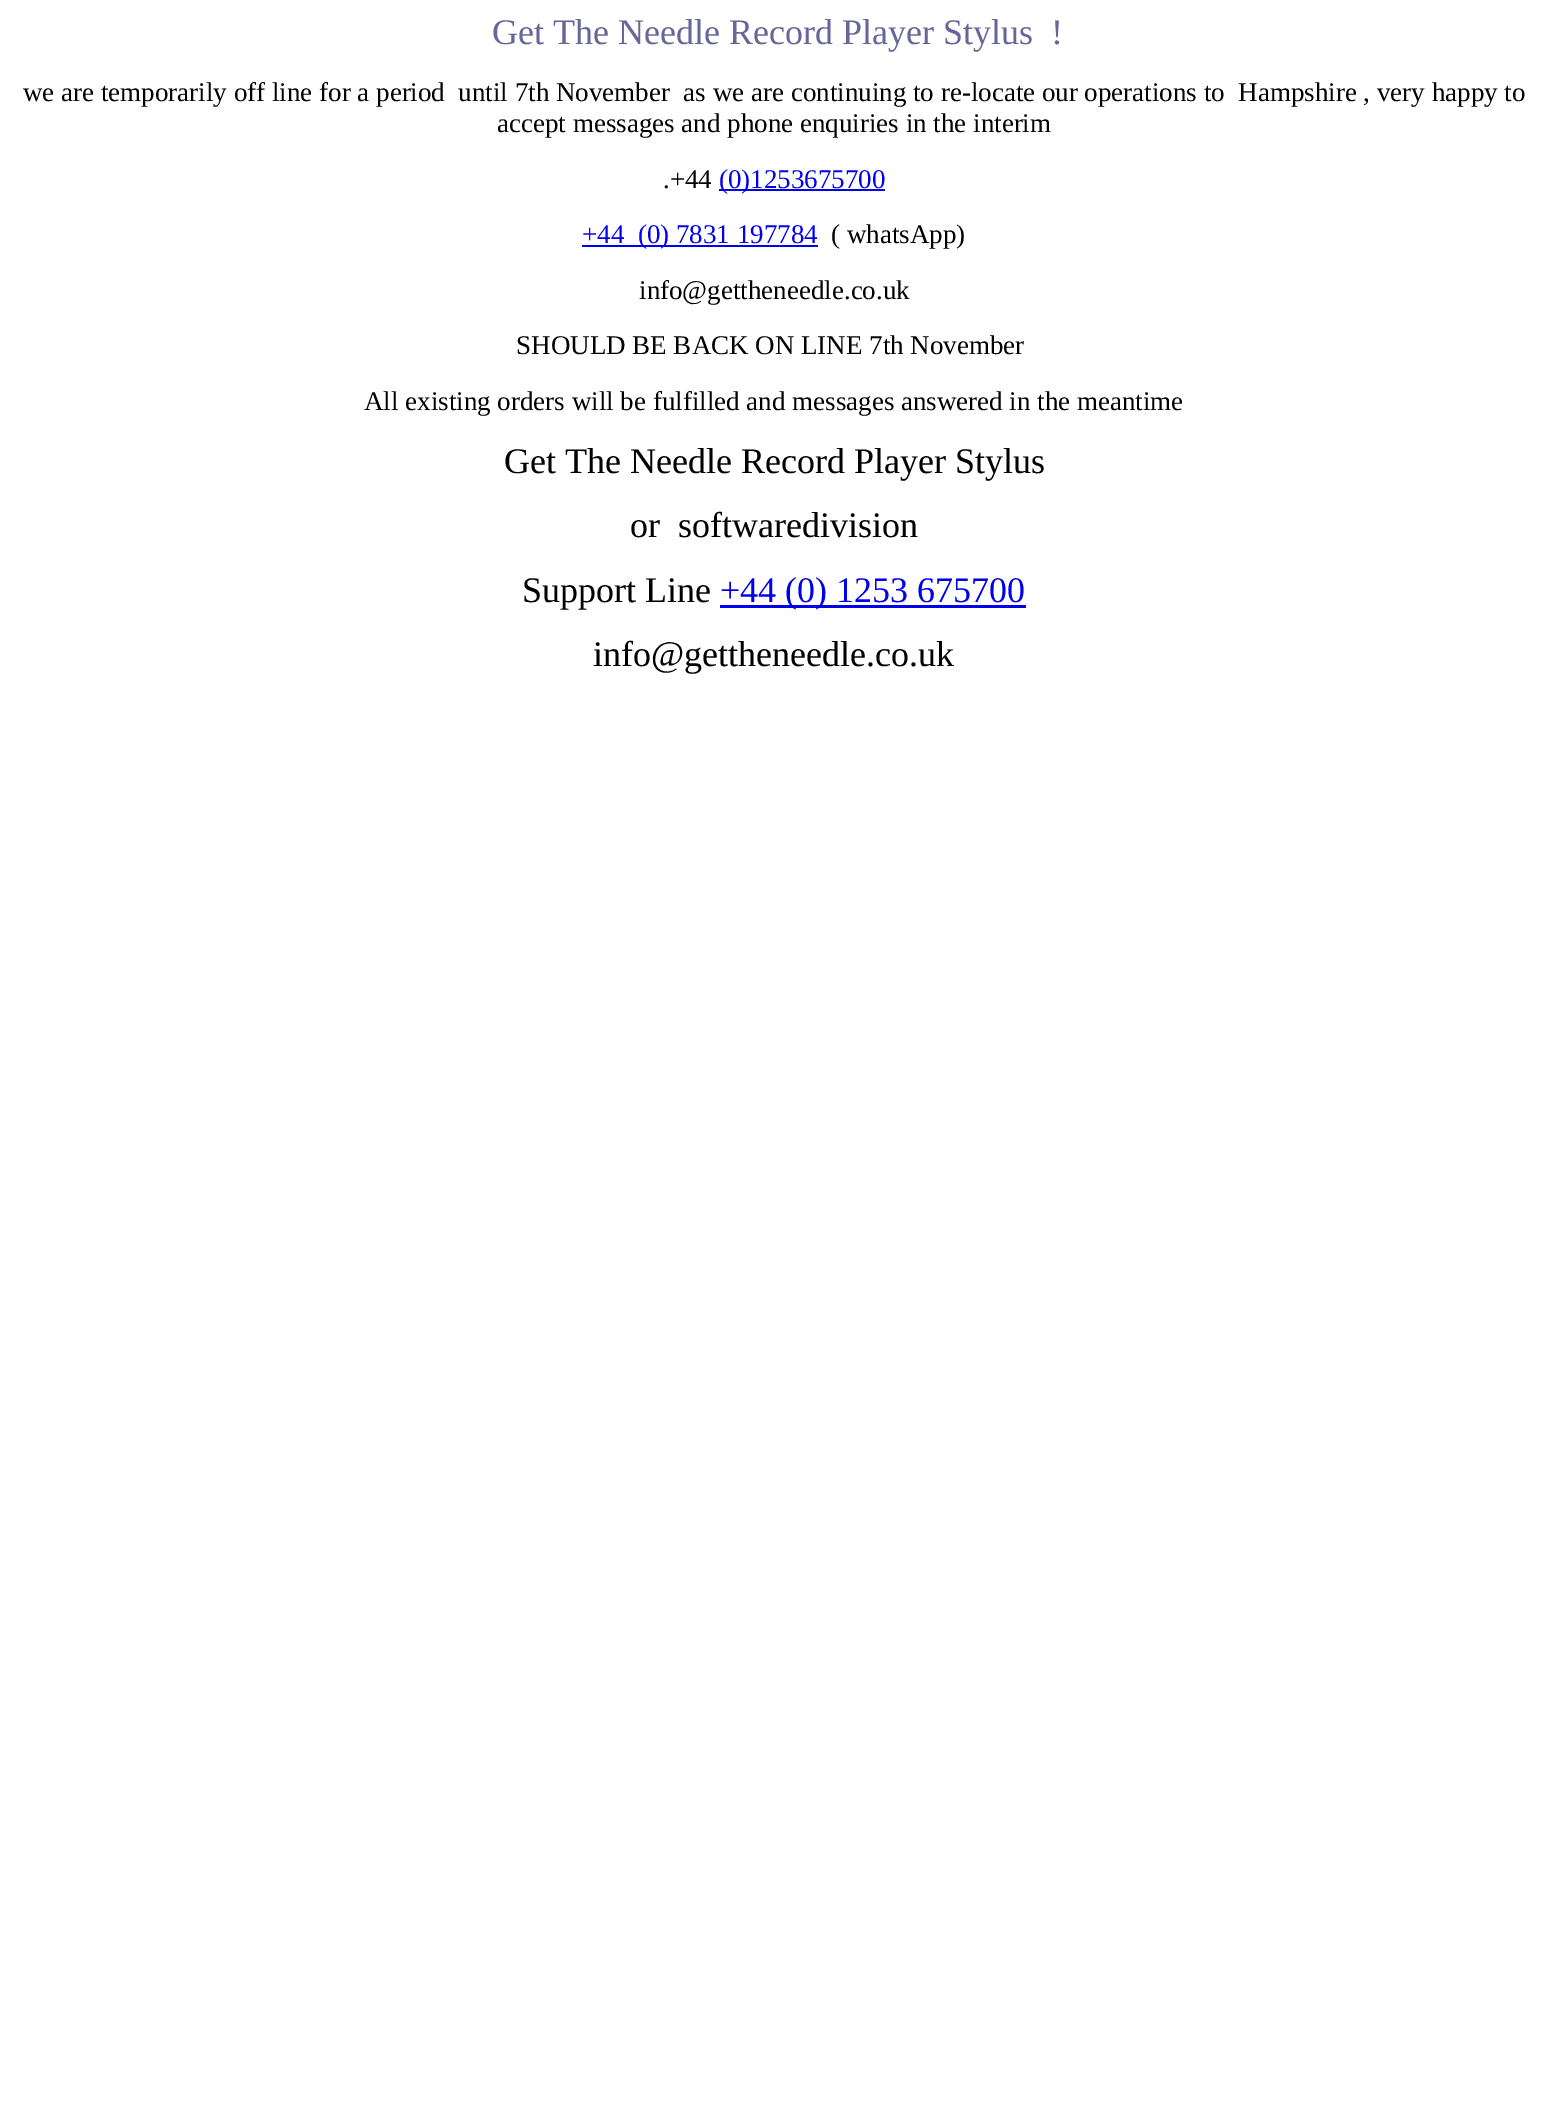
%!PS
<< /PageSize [1548 2109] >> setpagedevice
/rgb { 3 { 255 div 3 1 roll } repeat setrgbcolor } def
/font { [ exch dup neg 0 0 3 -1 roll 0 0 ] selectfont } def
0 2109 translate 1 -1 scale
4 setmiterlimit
255 255 255 rgb
0 0 1548 2109 rectfill
[
  [719 189 166 2 0 0 238]
  [582 245 236 2 0 0 238]
  [720 605 306 3 0 0 238]
] { aload pop rgb rectfill } forall
/LiberationSerif-Regular 36 font
102 102 153 rgb
492 44 moveto (Get The Needle Record Player Stylus  !) show
/LiberationSerif-Regular 27 font
0 0 0 rgb
[
  [(we are temporarily off line for a period  until 7th November  as we are continuing to re-locate our operations to  Hampshire , very happy to) 23 101]
  [(accept messages and phone enquiries in the interim) 497 132]
  [(.+44) 663 188]
] { aload pop moveto show } forall
0 0 238 rgb
719 188 moveto (\(0\)1253675700) show
582 243 moveto (+44  \(0\) 7831 197784) show
0 0 0 rgb
[
  [(\( whatsApp\)) 831 243]
  [(info@gettheneedle.co.uk) 639 299]
  [(SHOULD BE BACK ON LINE 7th November) 516 354]
  [(All existing orders will be fulfilled and messages answered in the meantime) 364 410]
] { aload pop moveto show } forall
/LiberationSerif-Regular 36 font
[
  [(Get The Needle Record Player Stylus) 504 473]
  [(or  softwaredivision) 630 537]
  [(Support Line) 522 602]
] { aload pop moveto show } forall
0 0 238 rgb
720 602 moveto (+44 \(0\) 1253 675700) show
0 0 0 rgb
593 666 moveto (info@gettheneedle.co.uk) show
showpage
